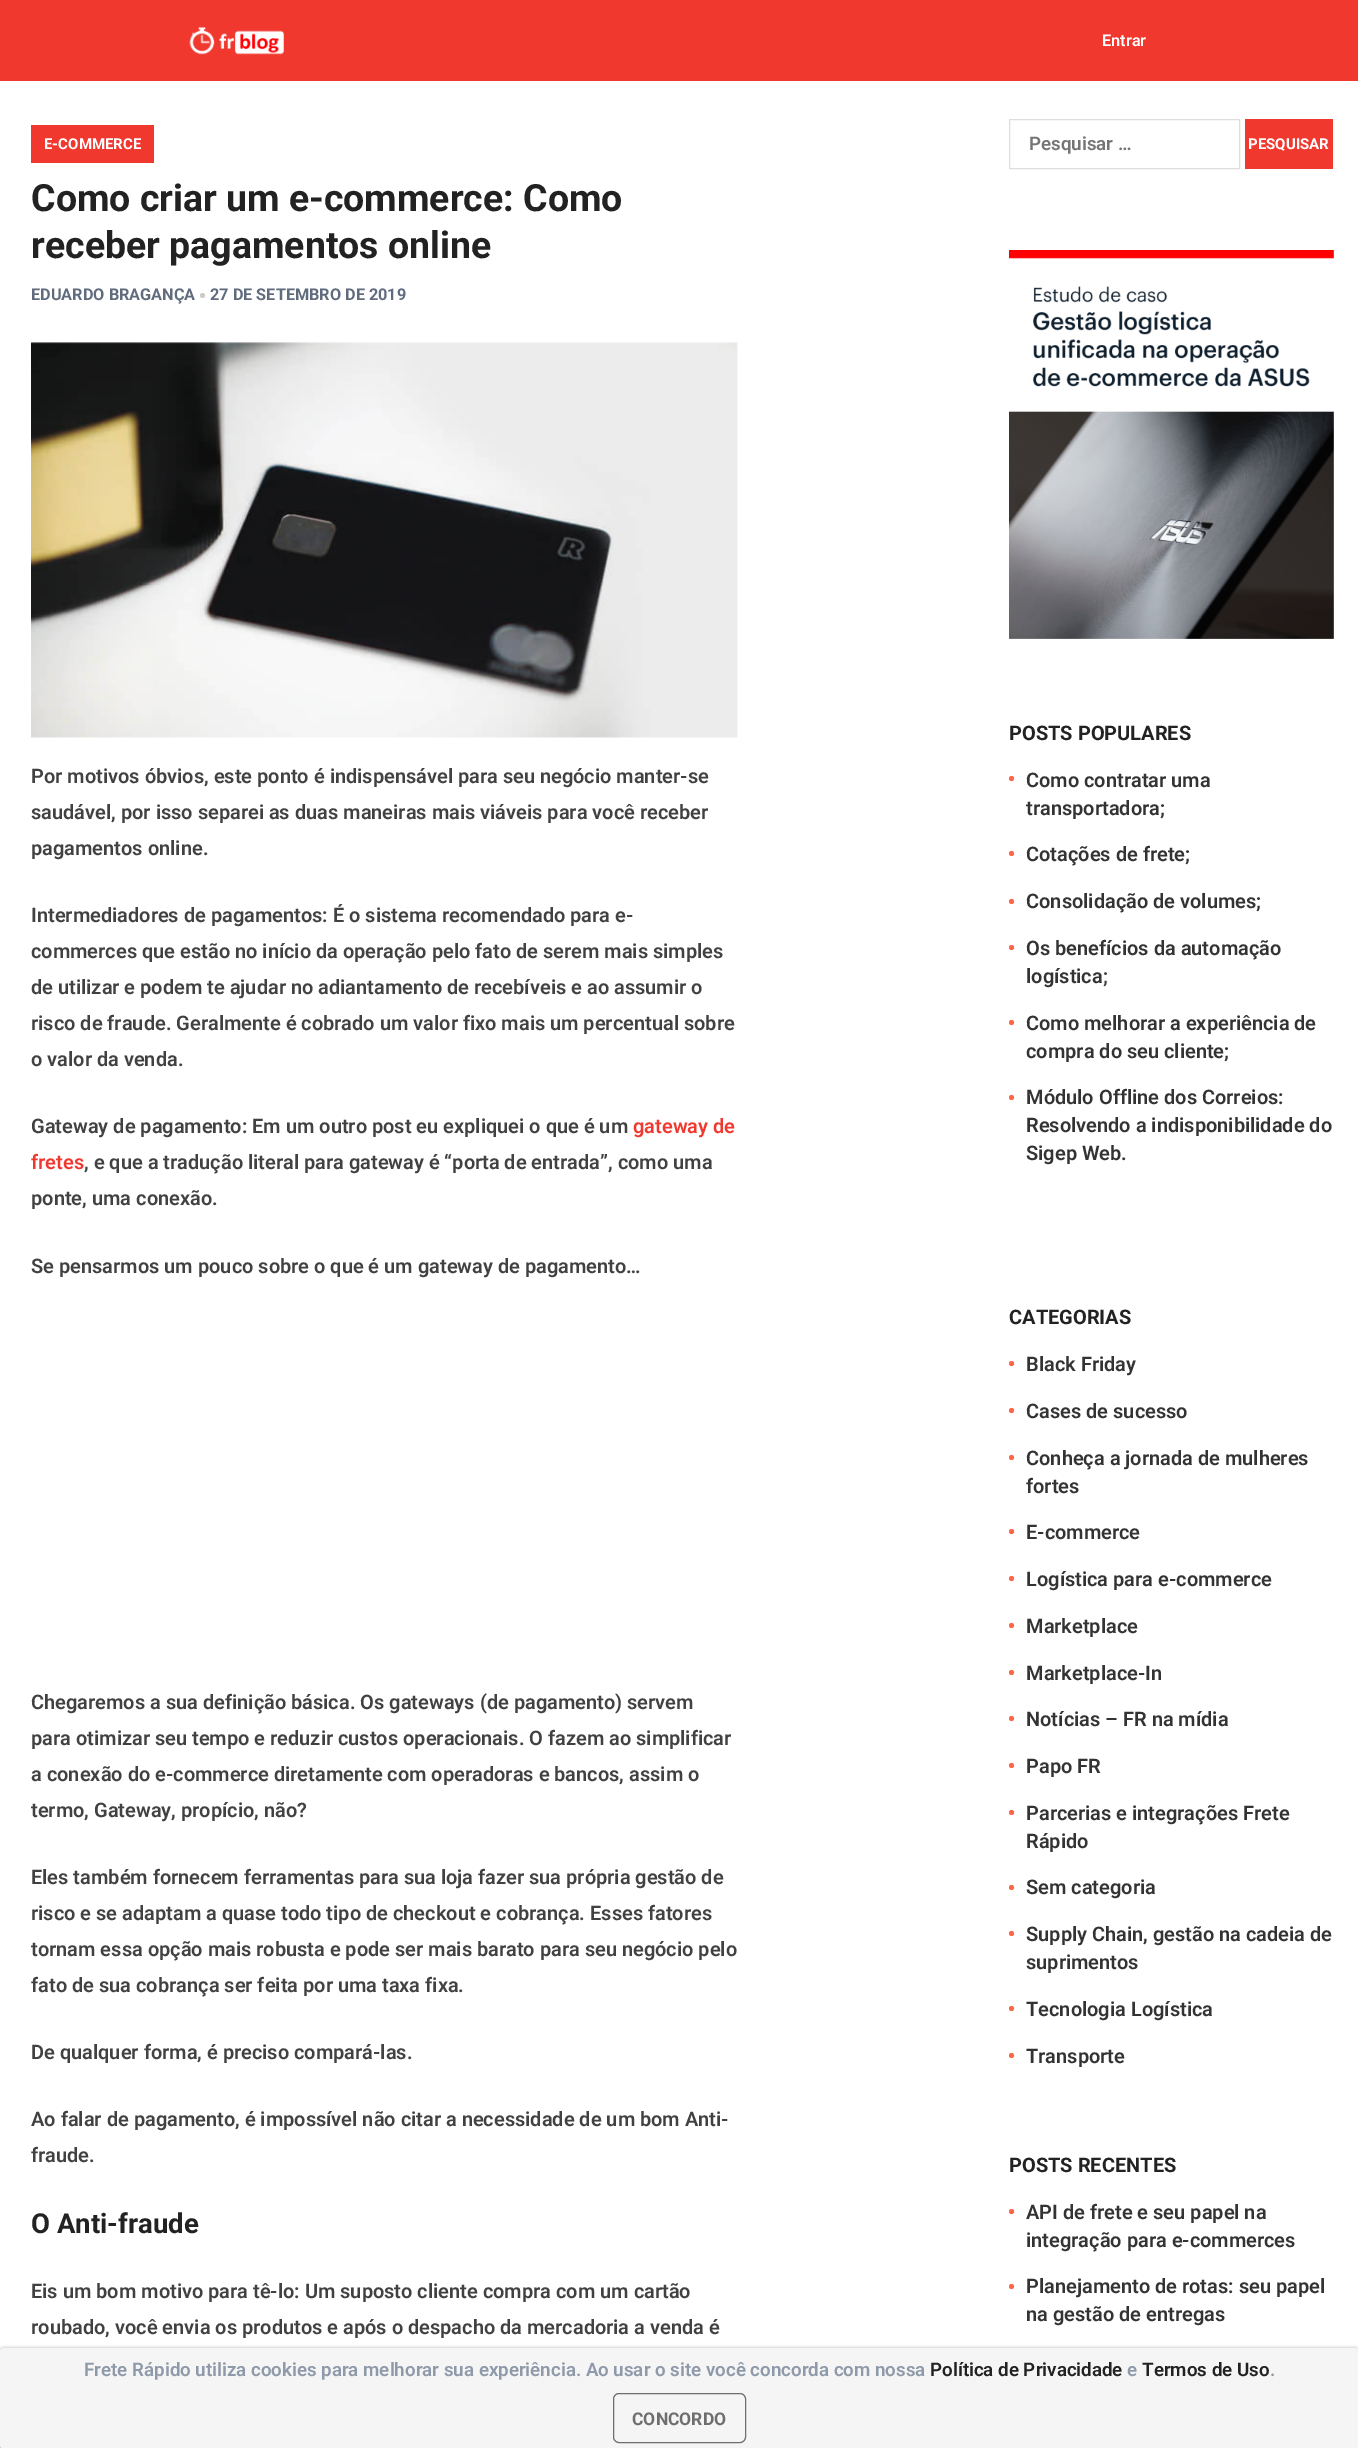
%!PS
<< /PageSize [1358 2448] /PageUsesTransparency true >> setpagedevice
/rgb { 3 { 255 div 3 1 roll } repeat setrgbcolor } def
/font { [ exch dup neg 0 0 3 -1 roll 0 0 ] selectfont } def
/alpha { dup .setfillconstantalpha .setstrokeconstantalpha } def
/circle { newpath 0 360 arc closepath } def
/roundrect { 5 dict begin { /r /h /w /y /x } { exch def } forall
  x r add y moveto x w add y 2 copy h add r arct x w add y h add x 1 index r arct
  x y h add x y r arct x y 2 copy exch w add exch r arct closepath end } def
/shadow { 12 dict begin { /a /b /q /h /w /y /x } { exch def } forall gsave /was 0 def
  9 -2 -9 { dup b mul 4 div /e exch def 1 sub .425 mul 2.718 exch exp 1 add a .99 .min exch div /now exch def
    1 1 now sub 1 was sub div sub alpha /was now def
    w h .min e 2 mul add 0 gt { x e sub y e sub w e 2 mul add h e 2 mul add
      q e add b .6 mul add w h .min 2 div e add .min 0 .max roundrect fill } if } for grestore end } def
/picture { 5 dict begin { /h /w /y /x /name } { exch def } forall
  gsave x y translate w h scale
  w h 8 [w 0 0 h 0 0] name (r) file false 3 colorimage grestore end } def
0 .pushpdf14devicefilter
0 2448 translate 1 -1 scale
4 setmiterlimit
255 255 255 rgb
0 0 1358 2448 rectfill
240 56 47 rgb
0 0 1358 81 rectfill
(img/1.rgb) 189 27 95 28 picture
31 125 123 38 rectfill
204 204 204 rgb
202.5 295.5 2.5 circle fill
(img/2.rgb) 31 342 707 396 picture
221 221 221 rgb
1009.5 119.5 230 49 rectstroke
240 56 47 rgb
1245 119 88 50 rectfill
(img/3.rgb) 1009 250 325 389 picture
255 102 68 rgb
1011.5 778.5 2.5 circle fill
1011.5 853.5 2.5 circle fill
1011.5 901.5 2.5 circle fill
1011.5 947.5 2.5 circle fill
1011.5 1022.5 2.5 circle fill
1011.5 1097.5 2.5 circle fill
1011.5 1363.5 2.5 circle fill
1011.5 1410.5 2.5 circle fill
1011.5 1457.5 2.5 circle fill
1011.5 1531.5 2.5 circle fill
1011.5 1578.5 2.5 circle fill
1011.5 1625.5 2.5 circle fill
1011.5 1672.5 2.5 circle fill
1011.5 1718.5 2.5 circle fill
1011.5 1765.5 2.5 circle fill
1011.5 1812.5 2.5 circle fill
1011.5 1887.5 2.5 circle fill
1011.5 1933.5 2.5 circle fill
1011.5 2008.5 2.5 circle fill
1011.5 2055.5 2.5 circle fill
1011.5 2211.5 2.5 circle fill
1011.5 2286.5 2.5 circle fill
1 1 1 rgb
0 2349 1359 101 4 2 0.5 shadow
245 245 245 rgb
0 2348 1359 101 4 roundrect fill
110 110 110 rgb
613.5 2393.5 132 49 5.5 roundrect stroke
/Roboto-SemiBold 16.25 font
255 255 255 rgb
1102 46 moveto (Entrar) show
/Roboto-Bold 15 font
44 149 moveto (E-COMMERCE) show
/Roboto-Bold 37.5 font
34 34 34 rgb
31 211 moveto (Como criar um e-commerce: Como) show
31 258 moveto (receber pagamentos online) show
/Roboto-Bold 16.25 font
96 108 126 rgb
31 300 moveto (EDUARDO BRAGANÇA) show
210 300 moveto (27 DE SETEMBRO DE 2019) show
/Roboto-SemiBold 20 font
65 65 65 rgb
[
  [(Por motivos óbvios, este ponto é indispensável para seu negócio manter-se) 31 783]
  [(saudável, por isso separei as duas maneiras mais viáveis para você receber) 31 819]
  [(pagamentos online.) 31 855]
  [(Intermediadores de pagamentos: É o sistema recomendado para e-) 31 922]
  [(commerces que estão no início da operação pelo fato de serem mais simples) 31 958]
  [(de utilizar e podem te ajudar no adiantamento de recebíveis e ao assumir o) 31 994]
  [(risco de fraude. Geralmente é cobrado um valor fixo mais um percentual sobre) 31 1030]
  [(o valor da venda.) 31 1066]
  [(Gateway de pagamento: Em um outro post eu expliquei o que é um) 31 1133]
] { aload pop moveto show } forall
240 56 47 rgb
633 1133 moveto (gateway de) show
31 1169 moveto (fretes) show
65 65 65 rgb
[
  [(, e que a tradução literal para gateway é “porta de entrada”, como uma) 84 1169]
  [(ponte, uma conexão.) 31 1205]
  [(Se pensarmos um pouco sobre o que é um gateway de pagamento…) 31 1273]
  [(Chegaremos a sua definição básica. Os gateways \(de pagamento\) servem) 31 1709]
  [(para otimizar seu tempo e reduzir custos operacionais. O fazem ao simplificar) 31 1745]
  [(a conexão do e-commerce diretamente com operadoras e bancos, assim o) 31 1781]
  [(termo, Gateway, propício, não?) 31 1817]
  [(Eles também fornecem ferramentas para sua loja fazer sua própria gestão de) 31 1884]
  [(risco e se adaptam a quase todo tipo de checkout e cobrança. Esses fatores) 31 1920]
  [(tornam essa opção mais robusta e pode ser mais barato para seu negócio pelo) 31 1956]
  [(fato de sua cobrança ser feita por uma taxa fixa.) 31 1992]
  [(De qualquer forma, é preciso compará-las.) 31 2059]
  [(Ao falar de pagamento, é impossível não citar a necessidade de um bom Anti-) 31 2126]
  [(fraude.) 31 2162]
] { aload pop moveto show } forall
/Roboto-Bold 27.5 font
34 34 34 rgb
31 2233 moveto (O Anti-fraude) show
/Roboto-SemiBold 20 font
65 65 65 rgb
31 2298 moveto (Eis um bom motivo para tê-lo: Um suposto cliente compra com um cartão) show
31 2334 moveto (roubado, você envia os produtos e após o despacho da mercadoria a venda é) show
/Roboto-SemiBold 18.75 font
117 117 117 rgb
1029 150 moveto (Pesquisar …) show
/Roboto-Bold 15 font
255 255 255 rgb
1248 149 moveto (PESQUISAR) show
/Roboto-Bold 20 font
34 34 34 rgb
1009 740 moveto (POSTS POPULARES) show
/Roboto-SemiBold 20 font
51 51 51 rgb
[
  [(Como contratar uma) 1026 787]
  [(transportadora;) 1026 815]
  [(Cotações de frete;) 1026 861]
  [(Consolidação de volumes;) 1026 908]
  [(Os benefícios da automação) 1026 955]
  [(logística) 1026 983]
] { aload pop moveto show } forall
65 65 65 rgb
1103 983 moveto (;) show
51 51 51 rgb
[
  [(Como melhorar a experiência de) 1026 1030]
  [(compra do seu cliente;) 1026 1058]
  [(Módulo Offline dos Correios:) 1026 1104]
  [(Resolvendo a indisponibilidade do) 1026 1132]
  [(Sigep Web.) 1026 1160]
] { aload pop moveto show } forall
/Roboto-Bold 20 font
34 34 34 rgb
1009 1324 moveto (CATEGORIAS) show
/Roboto-SemiBold 20 font
51 51 51 rgb
[
  [(Black Friday) 1026 1371]
  [(Cases de sucesso) 1026 1418]
  [(Conheça a jornada de mulheres) 1026 1465]
  [(fortes) 1026 1493]
  [(E-commerce) 1026 1539]
  [(Logística para e-commerce) 1026 1586]
  [(Marketplace) 1026 1633]
  [(Marketplace-In) 1026 1680]
  [(Notícias – FR na mídia) 1026 1726]
  [(Papo FR) 1026 1773]
  [(Parcerias e integrações Frete) 1026 1820]
  [(Rápido) 1026 1848]
  [(Sem categoria) 1026 1894]
  [(Supply Chain, gestão na cadeia de) 1026 1941]
  [(suprimentos) 1026 1969]
  [(Tecnologia Logística) 1026 2016]
  [(Transporte) 1026 2063]
] { aload pop moveto show } forall
/Roboto-Bold 20 font
34 34 34 rgb
1009 2172 moveto (POSTS RECENTES) show
/Roboto-SemiBold 20 font
51 51 51 rgb
[
  [(API de frete e seu papel na) 1026 2219]
  [(integração para e-commerces) 1026 2247]
  [(Planejamento de rotas: seu papel) 1026 2293]
  [(na gestão de entregas) 1026 2321]
] { aload pop moveto show } forall
/Roboto-SemiBold 18.75 font
142 153 169 rgb
84 2376 moveto (Frete Rápido utiliza cookies para melhorar sua experiência. Ao usar o site você concorda com nossa) show
34 34 34 rgb
930 2376 moveto (Política de Privacidade) show
142 153 169 rgb
1127 2376 moveto (e) show
34 34 34 rgb
1142 2376 moveto (Termos de Uso) show
142 153 169 rgb
1270 2376 moveto (.) show
/Roboto-Bold 17.5 font
110 110 110 rgb
632 2425 moveto (CONCORDO) show
.poppdf14devicefilter showpage
